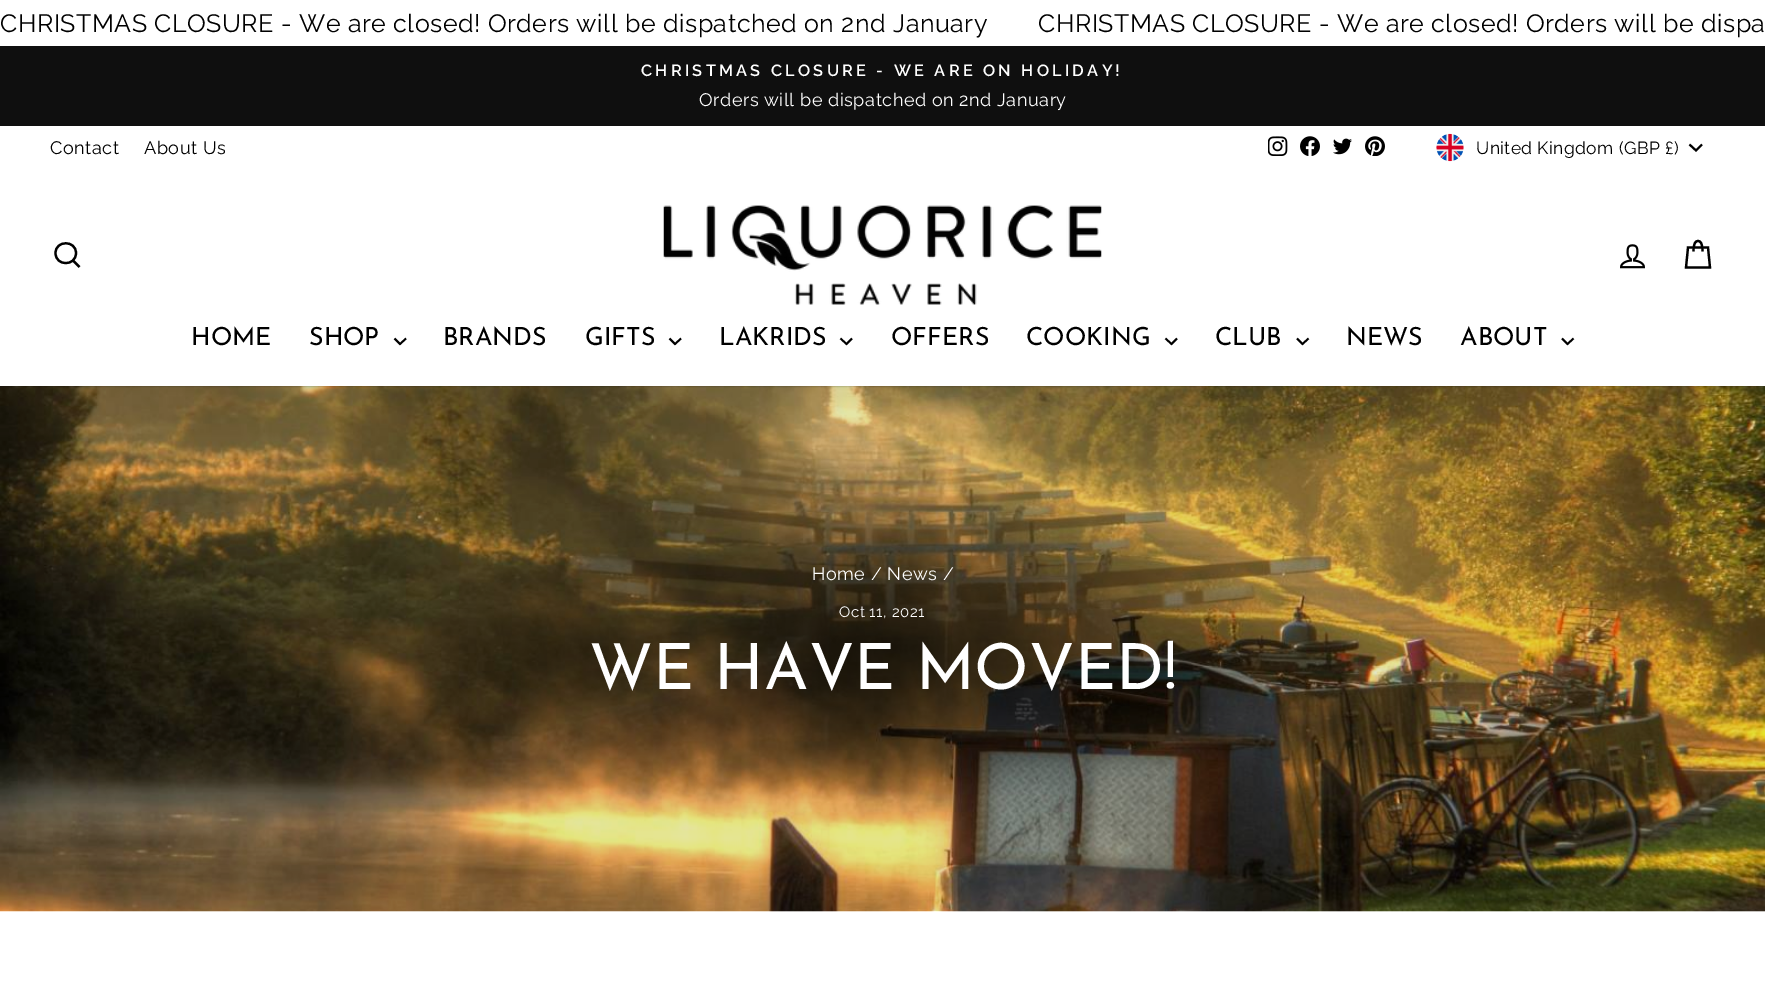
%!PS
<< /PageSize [1765 998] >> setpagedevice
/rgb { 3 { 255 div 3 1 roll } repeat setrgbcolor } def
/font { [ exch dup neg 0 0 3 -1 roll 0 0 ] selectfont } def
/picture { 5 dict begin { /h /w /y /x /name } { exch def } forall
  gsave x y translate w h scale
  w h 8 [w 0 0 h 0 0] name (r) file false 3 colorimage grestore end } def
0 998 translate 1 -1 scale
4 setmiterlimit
255 255 255 rgb
0 0 1765 998 rectfill
15 15 15 rgb
0 46 1765 80 rectfill
(img/1.rgb) 1268 136 20 20 picture
(img/2.rgb) 1300 136 20 20 picture
(img/3.rgb) 1333 138 19 17 picture
(img/4.rgb) 1365 136 20 20 picture
(img/5.rgb) 1436 133 28 29 picture
0 0 0 rgb
2 setlinewidth
1689.5 144.5 moveto 1696 150.5 lineto 1702 144.5 lineto stroke
2.2 setlinewidth
76 253 moveto 76 266.5 55.5 266.5 55.5 253 curveto 55.5 240 76 240 76 253 curveto closepath 79.5 267 moveto 73 260.5 lineto stroke
(img/6.rgb) 663 205 439 100 picture
(img/7.rgb) 1620 244 25 25 picture
1693.5 251.5 moveto 1693.5 243 1695.5 241 1698 241 curveto 1700.5 241 1702.5 243 1702.5 251.5 curveto 1688 247.5 moveto 1708 247.5 lineto 1710 267.5 lineto 1686 267.5 lineto closepath stroke
1.8 setlinewidth
394.5 338.5 moveto 400 344 lineto 406 338.5 lineto stroke
669.5 338.5 moveto 675 344 lineto 681 338.5 lineto stroke
840.5 338.5 moveto 846.5 344 lineto 852 338.5 lineto stroke
1165.5 338.5 moveto 1171.5 344 lineto 1177 338.5 lineto stroke
1297 338.5 moveto 1302.5 344 lineto 1308.5 338.5 lineto stroke
1562 338.5 moveto 1567.5 344 lineto 1573.5 338.5 lineto stroke
(img/8.rgb) 0 386 1765 526 picture
/Raleway-Regular 25 font
0 32 moveto 0.53 0 (CHRISTMAS CLOSURE - We are closed! Orders will be dispatched on 2nd January) ashow
1038 32 moveto 0.53 0 (CHRISTMAS CLOSURE - We are closed! Orders will be dispa) ashow
/Raleway-SemiBold 16.25 font
255 255 255 rgb
641 76 moveto 3.25 0 (CHRISTMAS CLOSURE - WE ARE ON HOLIDAY!) ashow
/Raleway-Regular 18.1 font
699 106 moveto 0.53 0 (Orders will be dispatched on 2nd January) ashow
0 0 0 rgb
50 154 moveto 0.53 0 (Contact) ashow
144 154 moveto 0.53 0 (About Us) ashow
/Raleway-Regular 17.5 font
1476 154 moveto 0.4 0 (United Kingdom \(GBP £\)) ashow
/JosefinSans-Regular 25 font
[
  [(HOME) 191 345]
  [(SHOP) 309 345]
  [(BRANDS) 443 345]
  [(GIFTS) 585 345]
  [(LAKRIDS) 719 345]
  [(OFFERS) 891 345]
  [(COOKING) 1026 345]
  [(CLUB) 1215 345]
  [(NEWS) 1346 345]
  [(ABOUT) 1460 345]
] { aload pop moveto show } forall
/Raleway-Regular 18.1 font
255 255 255 rgb
812 580 moveto 0.53 0 (Home / News /) ashow
/Raleway-Regular 15 font
839 617 moveto 0.53 0 (Oct 11, 2021) ashow
/JosefinSans-Regular 63.5 font
589 689 moveto (WE HAVE MOVED!) show
showpage
